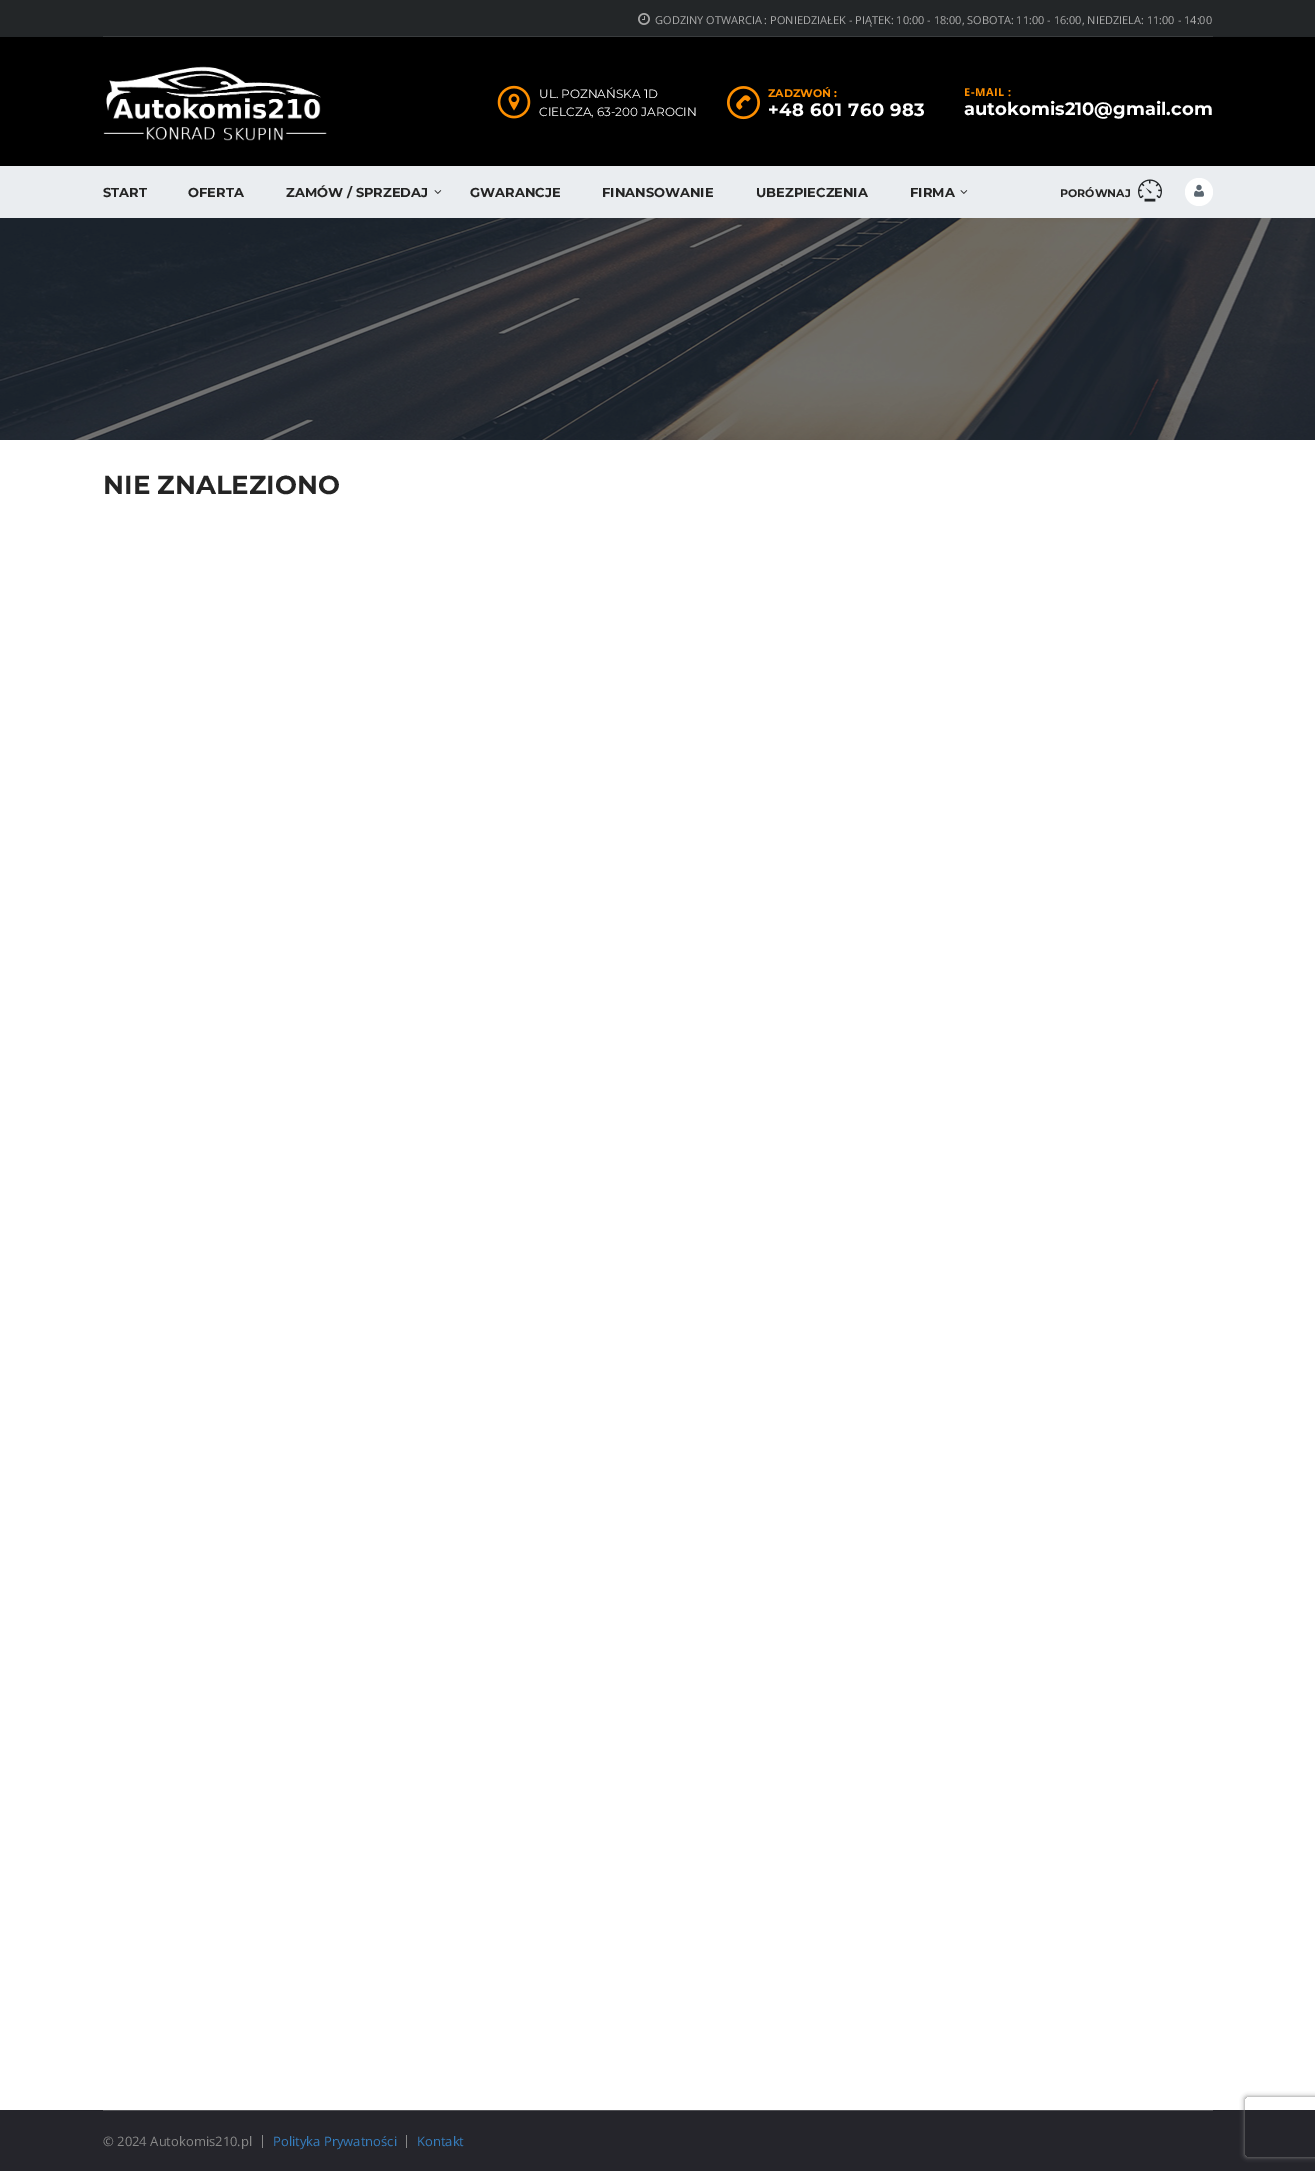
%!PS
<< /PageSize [1315 2171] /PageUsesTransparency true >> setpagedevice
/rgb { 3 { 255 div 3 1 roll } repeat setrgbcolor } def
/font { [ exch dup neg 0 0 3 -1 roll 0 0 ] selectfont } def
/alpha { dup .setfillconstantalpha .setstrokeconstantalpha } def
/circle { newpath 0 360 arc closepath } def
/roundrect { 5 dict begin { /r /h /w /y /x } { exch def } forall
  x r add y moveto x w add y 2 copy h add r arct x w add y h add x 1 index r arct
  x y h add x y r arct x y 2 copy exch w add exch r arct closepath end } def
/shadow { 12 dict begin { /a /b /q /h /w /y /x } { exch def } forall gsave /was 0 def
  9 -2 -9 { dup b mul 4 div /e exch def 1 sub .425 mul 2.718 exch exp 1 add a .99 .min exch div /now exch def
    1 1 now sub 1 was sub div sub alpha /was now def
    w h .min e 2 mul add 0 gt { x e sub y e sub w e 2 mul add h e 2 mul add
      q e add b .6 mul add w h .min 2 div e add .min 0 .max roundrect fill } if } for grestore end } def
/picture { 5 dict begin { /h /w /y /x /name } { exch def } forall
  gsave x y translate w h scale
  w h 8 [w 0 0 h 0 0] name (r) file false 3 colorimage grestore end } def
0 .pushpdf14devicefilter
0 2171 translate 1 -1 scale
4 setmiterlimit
255 255 255 rgb
0 0 1315 2171 rectfill
35 38 40 rgb
0 0 1315 37 rectfill
57 60 62 rgb
103 36 1110 1 rectfill
(img/1.rgb) 638 13 12 12 picture
0 0 0 rgb
0 37 1315 129 rectfill
(img/2.rgb) 103 66 224 75 picture
(img/3.rgb) 497 85 34 34 picture
(img/4.rgb) 727 86 33 34 picture
234 237 240 rgb
0 166 1315 52 rectfill
(img/5.rgb) 434 190 8 4 picture
(img/5.rgb) 960 190 8 4 picture
(img/6.rgb) 1138 179 24 23 picture
255 255 255 rgb
1199 192 14 circle fill
(img/7.rgb) 1194 184 10 13 picture
(img/8.rgb) 0 218 1315 222 picture
[
  [0 2110 1315 61 37 37 43]
  [103 2110 1110 1 81 81 85]
  [262 2135 1 13 136 136 136]
  [406 2135 1 13 136 136 136]
] { aload pop rgb rectfill } forall
gsave
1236 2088 moveto 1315 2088 lineto 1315 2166 lineto 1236 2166 lineto closepath 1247 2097 moveto 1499 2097 lineto 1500 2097 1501 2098 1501 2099 curveto 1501 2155 lineto 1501 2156 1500 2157 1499 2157 curveto 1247 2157 lineto 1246 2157 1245 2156 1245 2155 curveto 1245 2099 lineto 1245 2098 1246 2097 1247 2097 curveto closepath eoclip newpath
128 128 128 rgb
1245 2097 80 60 2 2.5 1 shadow
grestore
/OpenSans-Regular 11 font
170 170 170 rgb
655 24 moveto (GODZINY OTWARCIA : PONIEDZIAŁEK - PIĄTEK: 10:00 - 18:00, SOBOTA: 11:00 - 16:00, NIEDZIELA: 11:00 - 14:00) show
/Montserrat-Regular 12 font
255 255 255 rgb
539 98 moveto (UL. POZNAŃSKA 1D) show
539 116 moveto (CIELCZA, 63-200 JAROCIN) show
/Montserrat-Bold 11 font
254 143 0 rgb
768 97 moveto (ZADZWOŃ :) show
/Montserrat-Bold 18 font
255 255 255 rgb
768 116 moveto 0.5 0 (+48 601 760 983) ashow
/OpenSans-Bold 11 font
254 143 0 rgb
964 96 moveto 0.5 0 (E-MAIL :) ashow
/Montserrat-Bold 18 font
255 255 255 rgb
964 115 moveto (autokomis210@gmail.com) show
/Montserrat-Bold 13 font
36 36 36 rgb
[
  [(START) 103 197]
  [(OFERTA) 188 197]
  [(ZAMÓW / SPRZEDAJ) 286 197]
  [(GWARANCJE) 470 197]
  [(FINANSOWANIE) 602 197]
  [(UBEZPIECZENIA) 756 197]
  [(FIRMA) 910 197]
] { aload pop moveto show } forall
/Montserrat-Bold 11 font
1060 197 moveto (PORÓWNAJ) show
/Montserrat-Bold 26 font
103 494 moveto (NIE ZNALEZIONO) show
/OpenSans-Regular 13 font
136 136 136 rgb
103 2146 moveto (© 2024 Autokomis210.pl) show
53 126 191 rgb
273 2146 moveto (Polityka Prywatności) show
417 2146 moveto (Kontakt) show
.poppdf14devicefilter showpage
